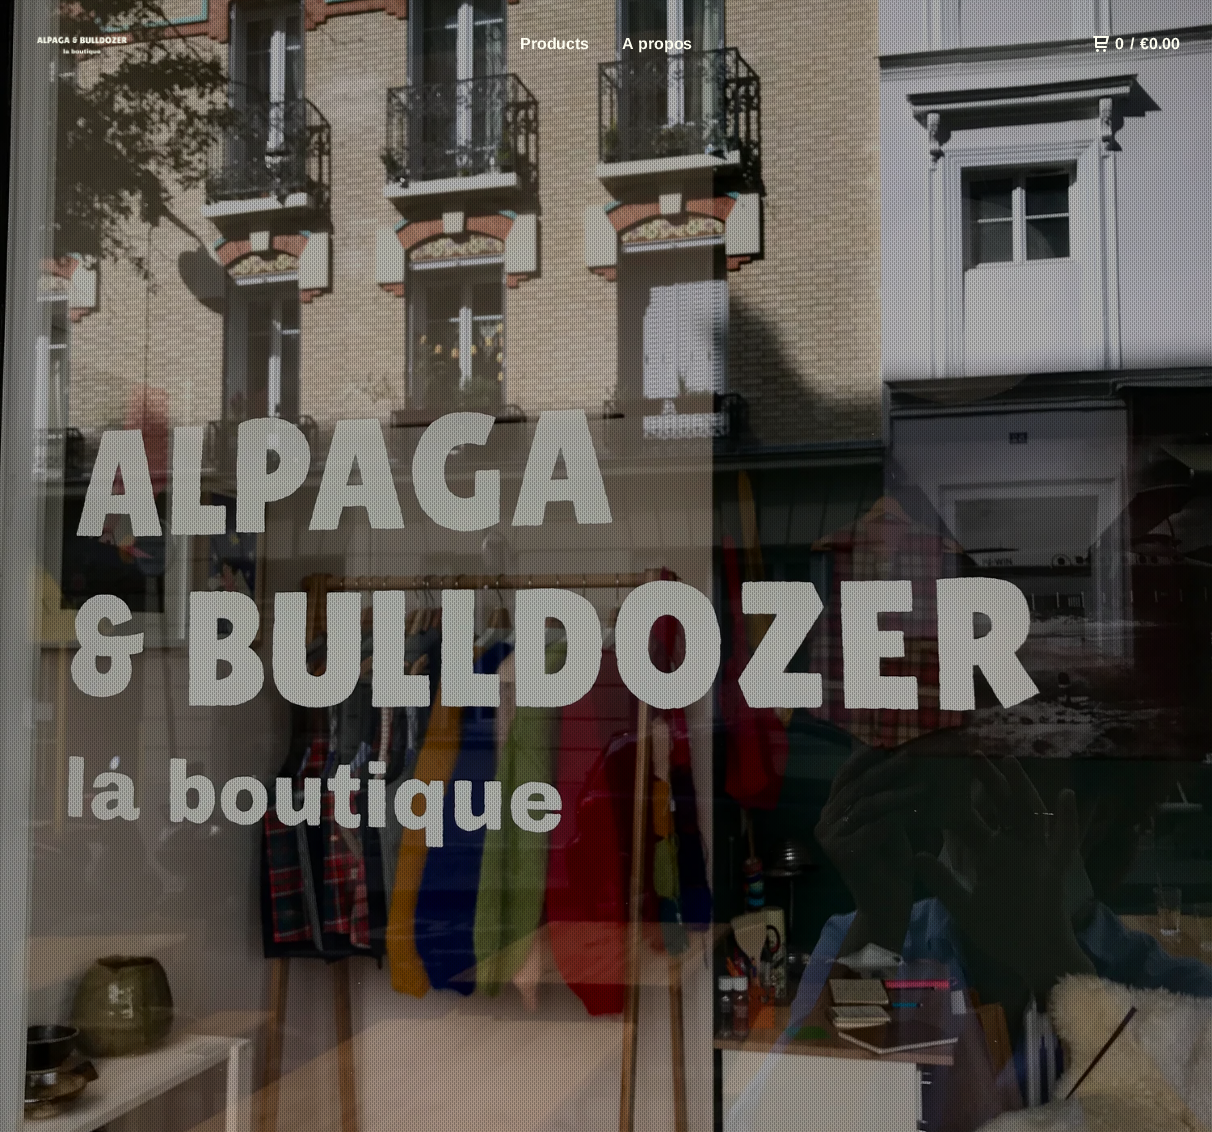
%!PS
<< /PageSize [1212 1132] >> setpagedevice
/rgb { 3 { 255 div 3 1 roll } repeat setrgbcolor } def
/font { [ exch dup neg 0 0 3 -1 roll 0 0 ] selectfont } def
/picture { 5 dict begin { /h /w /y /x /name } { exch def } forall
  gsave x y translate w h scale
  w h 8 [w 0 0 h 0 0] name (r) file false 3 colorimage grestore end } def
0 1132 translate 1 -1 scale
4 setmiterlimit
255 255 255 rgb
0 0 1212 1132 rectfill
(img/1.rgb) 0 0 1212 1132 picture
(img/2.rgb) 0 0 1211 1132 picture
(img/3.rgb) 36 36 92 20 picture
(img/4.rgb) 1093 36 16 16 picture
/LiberationSans-Bold 16 font
252 252 239 rgb
[
  [(Products) 520 49]
  [(A propos) 622 49]
  [(0) 1115 49]
  [(/) 1130 49]
  [(€0.00) 1140 49]
] { aload pop moveto show } forall
showpage
